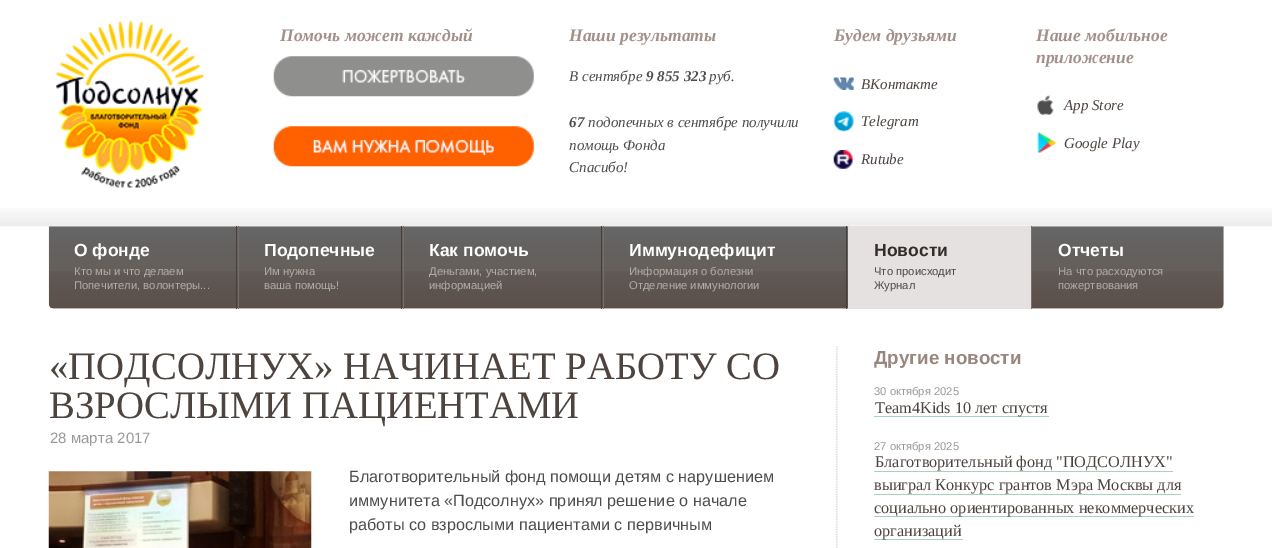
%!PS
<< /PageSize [1272 548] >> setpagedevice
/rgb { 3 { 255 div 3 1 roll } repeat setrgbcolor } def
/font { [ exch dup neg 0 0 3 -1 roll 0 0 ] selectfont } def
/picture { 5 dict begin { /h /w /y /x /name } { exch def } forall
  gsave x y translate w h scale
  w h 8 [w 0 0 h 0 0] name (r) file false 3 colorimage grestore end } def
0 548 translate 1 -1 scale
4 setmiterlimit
255 255 255 rgb
0 0 1272 548 rectfill
(img/1.rgb) 0 208 1272 19 picture
(img/2.rgb) 56 21 148 167 picture
(img/3.rgb) 273 56 261 41 picture
(img/4.rgb) 273 126 261 41 picture
(img/5.rgb) 833 77 21 13 picture
(img/6.rgb) 833 111 21 21 picture
(img/7.rgb) 833 150 20 19 picture
(img/8.rgb) 1037 95 17 20 picture
(img/9.rgb) 1037 132 20 21 picture
(img/10.rgb) 48 226 1176 83 picture
[
  [236 226 1 83 70 62 57]
  [401 226 1 83 70 62 57]
  [238 226 1 83 119 110 105]
  [601 226 1 83 70 62 57]
  [403 226 1 83 119 110 105]
  [846 226 1 83 70 62 57]
  [603 226 1 83 119 110 105]
  [849 226 181 83 229 225 225]
  [848 225 183 1 247 242 242]
  [1030 225 1 84 229 225 225]
  [848 225 1 84 229 225 225]
  [1031 226 1 83 119 110 105]
] { aload pop rgb rectfill } forall
(img/11.rgb) 836 346 2 202 picture
(img/12.rgb) 48 471 264 77 picture
[
  [874 416 175 1 166 210 193]
  [874 471 299 1 166 210 193]
  [874 494 307 1 166 210 193]
  [874 516 320 1 166 210 193]
  [874 539 89 1 166 210 193]
] { aload pop rgb rectfill } forall
/LiberationSerif-BoldItalic 17.5 font
163 145 137 rgb
280 41 moveto (Помочь может каждый) show
569 41 moveto (Наши результаты) show
/LiberationSerif-Italic 15 font
77 77 77 rgb
569 81 moveto (В сентябре) show
/LiberationSerif-BoldItalic 15 font
646 81 moveto (9 855 323) show
/LiberationSerif-Italic 15 font
709 81 moveto (руб.) show
/LiberationSerif-BoldItalic 15 font
569 127 moveto (67) show
/LiberationSerif-Italic 15 font
[
  [(подопечных в сентябре получили) 588 127]
  [(помощь Фонда) 569 150]
  [(Спасибо!) 569 172]
] { aload pop moveto show } forall
/LiberationSerif-BoldItalic 17.5 font
163 145 137 rgb
834 41 moveto (Будем друзьями) show
/LiberationSerif-Italic 15 font
77 68 63 rgb
[
  [(ВКонтакте) 861 89]
  [(Telegram) 861 126]
  [(Rutube) 861 164]
] { aload pop moveto show } forall
/LiberationSerif-BoldItalic 17.5 font
163 145 137 rgb
1036 41 moveto (Наше мобильное) show
1036 63 moveto (приложение) show
/LiberationSerif-Italic 15 font
77 68 63 rgb
1064 110 moveto (App Store) show
1064 148 moveto (Google Play) show
/LiberationSans-Bold 17.5 font
255 255 255 rgb
74 256 moveto (О фонде) show
/LiberationSans-Regular 11.25 font
179 173 170 rgb
74 275 moveto (Кто мы и что делаем) show
74 289 moveto (Попечители, волонтеры...) show
/LiberationSans-Bold 17.5 font
255 255 255 rgb
264 256 moveto (Подопечные) show
/LiberationSans-Regular 11.25 font
179 173 170 rgb
264 275 moveto (Им нужна) show
264 289 moveto (ваша помощь!) show
/LiberationSans-Bold 17.5 font
255 255 255 rgb
429 256 moveto (Как помочь) show
/LiberationSans-Regular 11.25 font
179 173 170 rgb
429 275 moveto (Деньгами, участием,) show
429 289 moveto (информацией) show
/LiberationSans-Bold 17.5 font
255 255 255 rgb
629 256 moveto (Иммунодефицит) show
/LiberationSans-Regular 11.25 font
179 173 170 rgb
629 275 moveto (Информация о болезни) show
629 289 moveto (Отделение иммунологии) show
/LiberationSans-Bold 17.5 font
51 45 42 rgb
874 256 moveto (Новости) show
/LiberationSans-Regular 11.25 font
77 72 70 rgb
874 275 moveto (Что происходит) show
874 289 moveto (Журнал) show
/LiberationSans-Bold 17.5 font
255 255 255 rgb
1058 256 moveto (Отчеты) show
/LiberationSans-Regular 11.25 font
179 173 170 rgb
1058 275 moveto (На что расходуются) show
1058 289 moveto (пожертвования) show
/LiberationSerif-Regular 38.75 font
77 68 63 rgb
49 379 moveto («ПОДСОЛНУХ» НАЧИНАЕТ РАБОТУ СО) show
49 418 moveto (ВЗРОСЛЫМИ ПАЦИЕНТАМИ) show
/LiberationSans-Regular 15 font
153 153 153 rgb
50 443 moveto (28 марта 2017) show
/LiberationSans-Regular 16.25 font
77 77 77 rgb
[
  [(Благотворительный фонд помощи детям с нарушением) 349 482]
  [(иммунитета «Подсолнух» принял решение о начале) 349 506]
  [(работы со взрослыми пациентами с первичным) 349 530]
] { aload pop moveto show } forall
/LiberationSans-Bold 18.75 font
153 135 127 rgb
874 364 moveto (Другие новости) show
/LiberationSans-Regular 11.25 font
153 153 153 rgb
874 395 moveto (30 октября 2025) show
/LiberationSerif-Regular 16.25 font
77 68 63 rgb
875 413 moveto (Team4Kids 10 лет спустя) show
/LiberationSans-Regular 11.25 font
153 153 153 rgb
874 450 moveto (27 октября 2025) show
/LiberationSerif-Regular 16.25 font
77 68 63 rgb
[
  [(Благотворительный фонд "ПОДСОЛНУХ") 875 467]
  [(выиграл Конкурс грантов Мэра Москвы для) 874 490]
  [(социально ориентированных некоммерческих) 874 513]
  [(организаций) 874 536]
] { aload pop moveto show } forall
showpage
